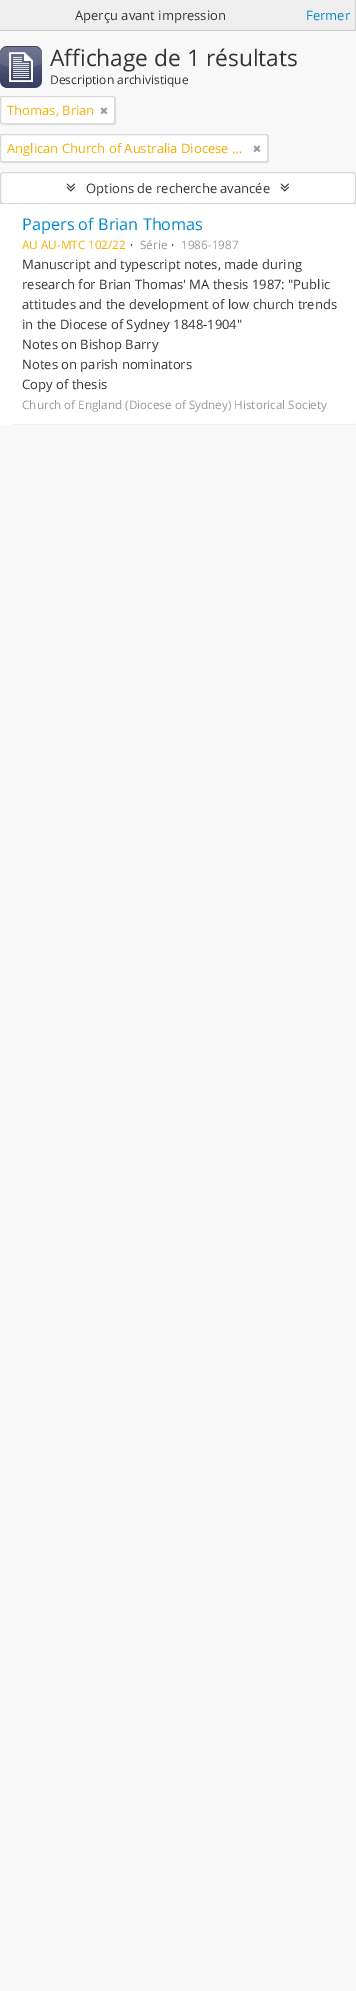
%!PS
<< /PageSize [356 1991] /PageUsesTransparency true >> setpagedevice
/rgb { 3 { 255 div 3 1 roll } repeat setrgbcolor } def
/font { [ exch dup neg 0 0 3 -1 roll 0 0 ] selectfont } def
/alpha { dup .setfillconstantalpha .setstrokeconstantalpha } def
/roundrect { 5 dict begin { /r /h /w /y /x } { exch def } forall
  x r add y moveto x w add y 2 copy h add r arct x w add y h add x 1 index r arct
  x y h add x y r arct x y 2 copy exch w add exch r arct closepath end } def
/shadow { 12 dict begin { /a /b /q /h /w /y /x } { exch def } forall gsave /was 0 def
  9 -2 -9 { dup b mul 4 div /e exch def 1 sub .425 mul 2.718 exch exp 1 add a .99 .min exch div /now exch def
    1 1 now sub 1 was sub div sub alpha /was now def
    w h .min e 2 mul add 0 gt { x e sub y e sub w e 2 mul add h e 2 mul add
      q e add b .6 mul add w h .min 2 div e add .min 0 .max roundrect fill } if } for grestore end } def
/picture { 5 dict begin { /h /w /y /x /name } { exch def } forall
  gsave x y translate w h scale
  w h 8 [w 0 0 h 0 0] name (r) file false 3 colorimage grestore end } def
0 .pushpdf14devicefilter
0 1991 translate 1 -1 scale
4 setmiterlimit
248 248 248 rgb
0 0 356 1991 rectfill
[
  [0 0 355 30 238 238 238]
  [355 0 1 31 204 204 204]
  [0 30 356 1 204 204 204]
] { aload pop rgb rectfill } forall
(img/1.rgb) 0 46 42 42 picture
0 0 0 rgb
1 97 115 28 2 0.5 0.1 shadow
255 255 255 rgb
0.5 96.5 114 27 1.5 roundrect gsave fill grestore
217 217 217 rgb
stroke
(img/2.rgb) 100 107 8 7 picture
0 0 0 rgb
1 135 268 28 2 0.5 0.1 shadow
255 255 255 rgb
0.5 134.5 267 27 1.5 roundrect gsave fill grestore
217 217 217 rgb
stroke
(img/2.rgb) 253 145 8 7 picture
0 0 0 rgb
0 173 356 32 4 0.5 0.2 shadow
255 255 255 rgb
0.5 172.5 355 31 3.5 roundrect gsave fill grestore
217 217 217 rgb
stroke
(img/3.rgb) 66 183 9 9 picture
(img/3.rgb) 280 183 9 9 picture
255 255 255 rgb
0 204 356 221 4 roundrect fill
238 238 238 rgb
12 424 344 1 rectfill
/OpenSans-Regular 13 font
51 51 51 rgb
75 20 moveto (Aperçu avant impression) show
0 136 204 rgb
306 20 moveto (Fermer) show
/OpenSans-Regular 22.75 font
51 51 51 rgb
50 66 moveto (Affichage de 1 résultats) show
/OpenSans-Regular 12 font
50 84 moveto (Description archivistique) show
/OpenSans-Regular 13 font
246 172 0 rgb
7 115 moveto (Thomas, Brian) show
7 153 moveto (Anglican Church of Australia Diocese …) show
51 51 51 rgb
86 193 moveto (Options de recherche avancée) show
/OpenSans-Regular 16.25 font
0 136 204 rgb
22 230 moveto (Papers of Brian Thomas) show
/OpenSans-Regular 11.7 font
246 172 0 rgb
22 249 moveto (AU AU-MTC 102/22) show
0 0 0 rgb
130 249 moveto (·) show
153 153 153 rgb
140 249 moveto (Série) show
0 0 0 rgb
171 249 moveto (·) show
153 153 153 rgb
181 249 moveto (1986-1987) show
/OpenSans-Regular 13 font
51 51 51 rgb
[
  [(Manuscript and typescript notes, made during) 22 269]
  [(research for Brian Thomas' MA thesis 1987: "Public) 22 289]
  [(attitudes and the development of low church trends) 22 309]
  [(in the Diocese of Sydney 1848-1904") 22 329]
  [(Notes on Bishop Barry) 22 349]
  [(Notes on parish nominators) 22 369]
  [(Copy of thesis) 22 389]
] { aload pop moveto show } forall
/OpenSans-Regular 11.7 font
153 153 153 rgb
22 409 moveto (Church of England \(Diocese of Sydney\) Historical Society) show
.poppdf14devicefilter showpage
